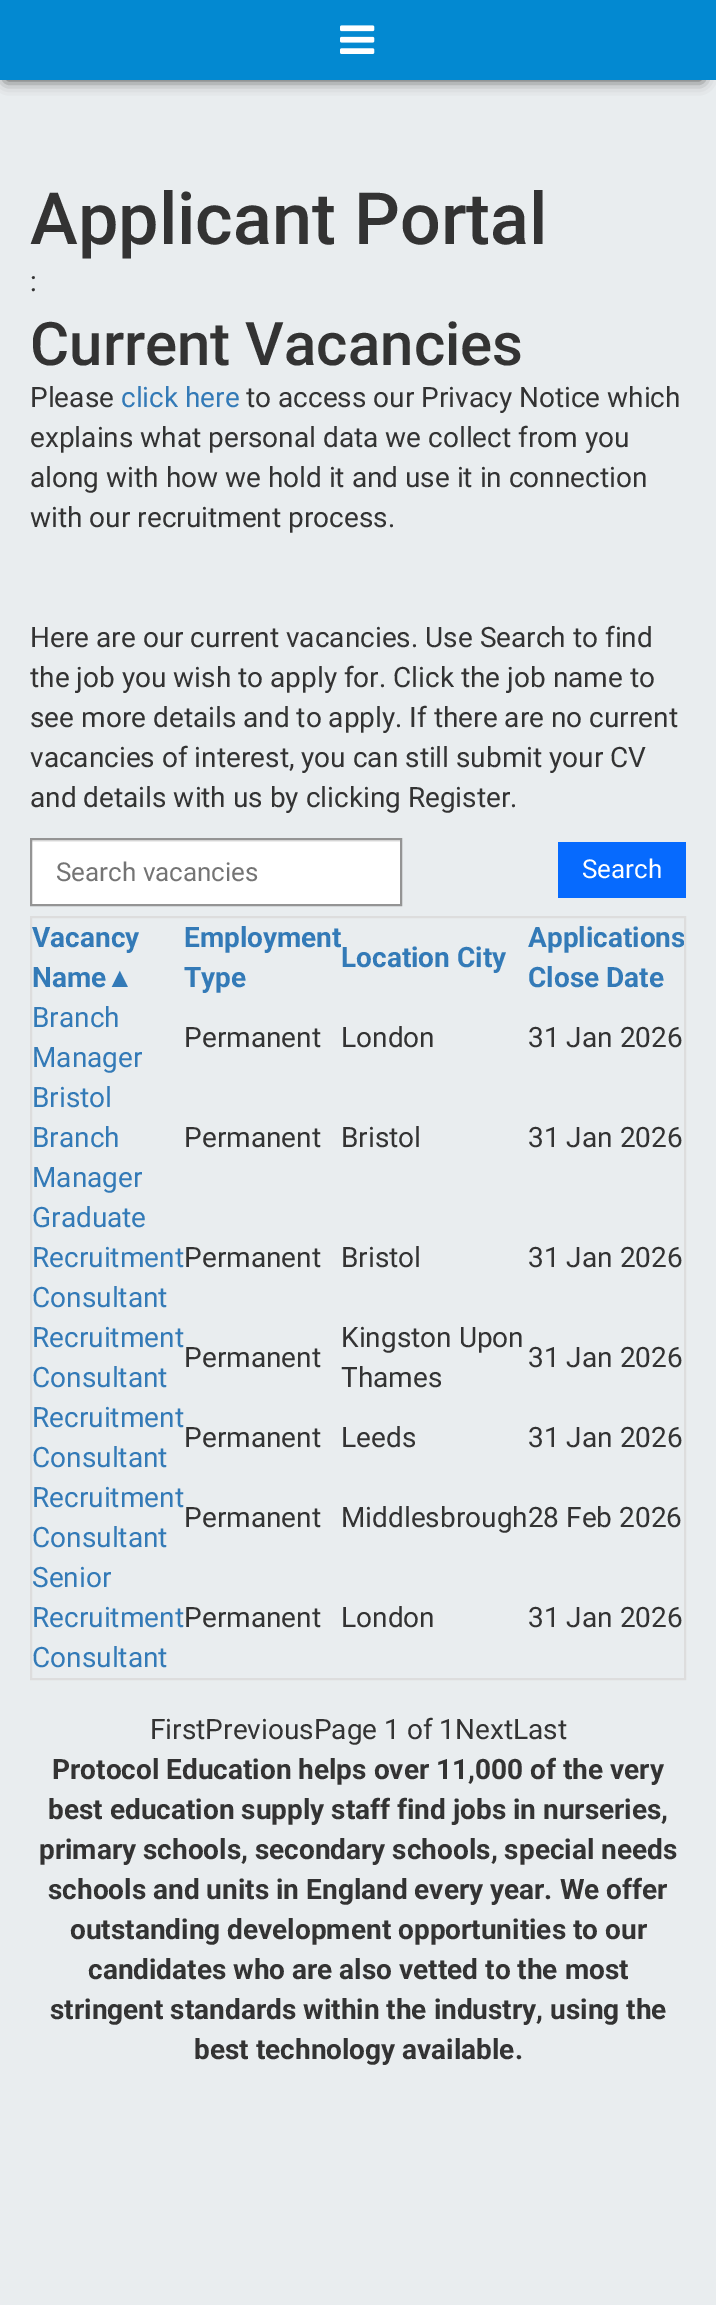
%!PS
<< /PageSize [716 2305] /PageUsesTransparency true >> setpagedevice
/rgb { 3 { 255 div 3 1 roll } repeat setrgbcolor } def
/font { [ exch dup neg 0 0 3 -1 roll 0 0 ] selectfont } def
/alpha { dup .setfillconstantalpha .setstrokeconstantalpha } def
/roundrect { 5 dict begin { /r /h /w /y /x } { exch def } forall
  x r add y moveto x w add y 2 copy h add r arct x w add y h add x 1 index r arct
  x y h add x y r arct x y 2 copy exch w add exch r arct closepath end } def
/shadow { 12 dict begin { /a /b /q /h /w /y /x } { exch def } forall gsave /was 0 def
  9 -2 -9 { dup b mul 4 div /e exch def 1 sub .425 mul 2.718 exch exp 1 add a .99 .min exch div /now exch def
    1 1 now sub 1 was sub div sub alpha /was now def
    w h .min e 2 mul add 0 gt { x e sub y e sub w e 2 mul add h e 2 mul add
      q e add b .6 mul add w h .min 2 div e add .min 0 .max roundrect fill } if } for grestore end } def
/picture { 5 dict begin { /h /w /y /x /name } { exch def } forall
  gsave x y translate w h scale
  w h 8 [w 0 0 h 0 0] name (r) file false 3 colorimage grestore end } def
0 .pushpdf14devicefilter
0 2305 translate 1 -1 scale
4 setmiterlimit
233 237 239 rgb
0 0 716 2305 rectfill
0 0 0 rgb
6 20 696 60 0 7 0.75 shadow
3 137 209 rgb
0 0 716 80 rectfill
(img/1.rgb) 340 25 35 29 picture
255 255 255 rgb
32 842 368 62 rectfill
236 236 236 rgb
32 840 368 2 rectfill
148 148 148 rgb
2 setlinewidth
31 839 370 66 rectstroke
6 106 254 rgb
558 842 128 56 rectfill
221 221 221 rgb
31 917 654 762 rectstroke
/Roboto-Medium 72 font
51 51 51 rgb
30 244 moveto (Applicant Portal) show
/Roboto-Regular 28 font
30 291 moveto (:) show
/Roboto-Medium 60 font
30 365 moveto (Current Vacancies) show
/Roboto-Regular 28 font
30 407 moveto (Please) show
51 122 183 rgb
121 407 moveto (click here) show
51 51 51 rgb
[
  [(to access our Privacy Notice which) 246 407]
  [(explains what personal data we collect from you) 30 447]
  [(along with how we hold it and use it in connection) 30 487]
  [(with our recruitment process.) 30 527]
  [(Here are our current vacancies. Use Search to find) 30 647]
  [(the job you wish to apply for. Click the job name to) 30 687]
  [(see more details and to apply. If there are no current) 30 727]
  [(vacancies of interest, you can still submit your CV) 30 767]
  [(and details with us by clicking Register.) 30 807]
] { aload pop moveto show } forall
/Roboto-Regular 26 font
116 116 116 rgb
56 881 moveto (Search vacancies) show
255 255 255 rgb
582 878 moveto (Search) show
/Roboto-Bold 28 font
51 122 183 rgb
32 947 moveto (Vacancy) show
32 987 moveto (Name) show
/LiberationSans-Bold 28 font
106 987 moveto (▲) show
/Roboto-Bold 28 font
[
  [(Employment) 184 947]
  [(Type) 184 987]
  [(Location City) 341 967]
] { aload pop moveto show } forall
gsave
32 918 652 760 rectclip
528 947 moveto (Applications) show
grestore
528 987 moveto (Close Date) show
/Roboto-Regular 28 font
32 1027 moveto (Branch) show
32 1067 moveto (Manager) show
51 51 51 rgb
[
  [(Permanent) 184 1047]
  [(London) 341 1047]
  [(31 Jan 2026) 528 1047]
] { aload pop moveto show } forall
51 122 183 rgb
[
  [(Bristol) 32 1107]
  [(Branch) 32 1147]
  [(Manager) 32 1187]
] { aload pop moveto show } forall
51 51 51 rgb
[
  [(Permanent) 184 1147]
  [(Bristol) 341 1147]
  [(31 Jan 2026) 528 1147]
] { aload pop moveto show } forall
51 122 183 rgb
[
  [(Graduate) 32 1227]
  [(Recruitment) 32 1267]
  [(Consultant) 32 1307]
] { aload pop moveto show } forall
51 51 51 rgb
[
  [(Permanent) 184 1267]
  [(Bristol) 341 1267]
  [(31 Jan 2026) 528 1267]
] { aload pop moveto show } forall
51 122 183 rgb
32 1347 moveto (Recruitment) show
32 1387 moveto (Consultant) show
51 51 51 rgb
[
  [(Permanent) 184 1367]
  [(Kingston Upon) 341 1347]
  [(Thames) 341 1387]
  [(31 Jan 2026) 528 1367]
] { aload pop moveto show } forall
51 122 183 rgb
32 1427 moveto (Recruitment) show
32 1467 moveto (Consultant) show
51 51 51 rgb
[
  [(Permanent) 184 1447]
  [(Leeds) 341 1447]
  [(31 Jan 2026) 528 1447]
] { aload pop moveto show } forall
51 122 183 rgb
32 1507 moveto (Recruitment) show
32 1547 moveto (Consultant) show
51 51 51 rgb
184 1527 moveto (Permanent) show
341 1527 moveto (Middlesbrough28 Feb 2026) show
51 122 183 rgb
[
  [(Senior) 32 1587]
  [(Recruitment) 32 1627]
  [(Consultant) 32 1667]
] { aload pop moveto show } forall
51 51 51 rgb
[
  [(Permanent) 184 1627]
  [(London) 341 1627]
  [(31 Jan 2026) 528 1627]
  [(FirstPreviousPage 1 of 1NextLast) 150 1739]
] { aload pop moveto show } forall
/Roboto-Bold 28 font
[
  [(Protocol Education helps over 11,000 of the very) 52 1779]
  [(best education supply staff find jobs in nurseries,) 48 1819]
  [(primary schools, secondary schools, special needs) 39 1859]
  [(schools and units in England every year. We offer) 48 1899]
  [(outstanding development opportunities to our) 70 1939]
  [(candidates who are also vetted to the most) 88 1979]
  [(stringent standards within the industry, using the) 50 2019]
  [(best technology available.) 194 2059]
] { aload pop moveto show } forall
.poppdf14devicefilter showpage
